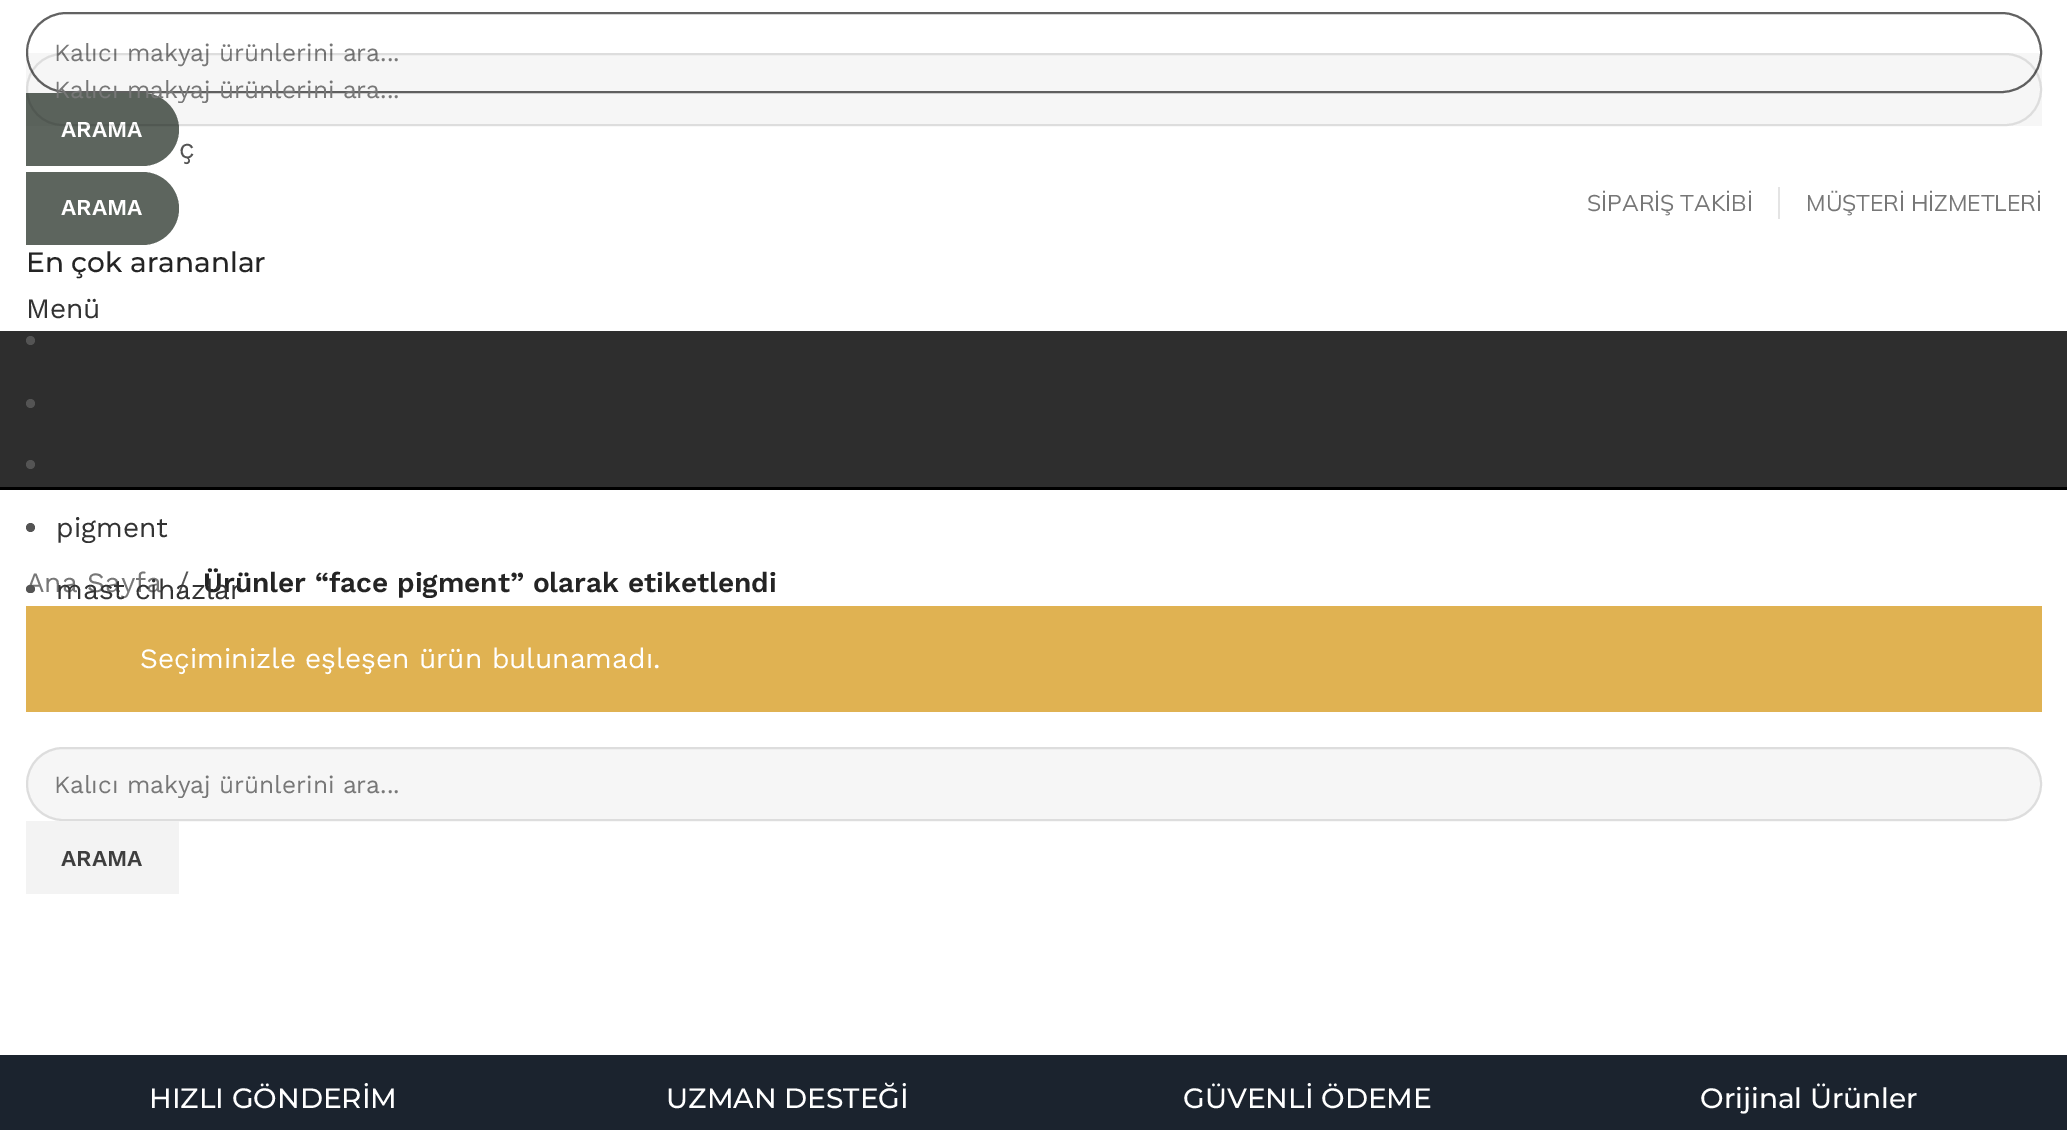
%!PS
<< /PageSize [2067 1130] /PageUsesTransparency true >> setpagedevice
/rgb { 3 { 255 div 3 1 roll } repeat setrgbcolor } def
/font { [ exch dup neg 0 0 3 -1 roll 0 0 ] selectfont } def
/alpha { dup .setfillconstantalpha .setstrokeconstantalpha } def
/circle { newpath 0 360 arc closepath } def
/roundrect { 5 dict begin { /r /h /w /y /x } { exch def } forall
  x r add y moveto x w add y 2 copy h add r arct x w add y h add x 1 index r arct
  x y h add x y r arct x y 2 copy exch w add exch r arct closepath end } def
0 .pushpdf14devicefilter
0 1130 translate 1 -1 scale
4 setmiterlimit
255 255 255 rgb
0 0 2067 1130 rectfill
98 98 98 rgb
2 setlinewidth
27 13 2014 79 39.5 roundrect stroke
93 101 94 rgb
26 93 moveto 142.5 93 lineto 162.5 93 179 109.5 179 129.5 curveto 179 149.5 162.5 166 142.5 166 curveto 26 166 lineto closepath fill
[
  [1778 187 2 32 228 228 228]
  [0 331 2067 156 46 46 46]
  [0 487 2067 3 0 0 0]
  [26 606 2016 106 224 178 82]
] { aload pop rgb rectfill } forall
246 246 246 rgb
26 747 2016 74 37 roundrect fill
0.1 alpha
0 0 0 rgb
27 748 2014 72 36 roundrect stroke
1 alpha
[
  [26 821 153 73 243 243 243]
  [0 1055 2067 75 27 35 46]
] { aload pop rgb rectfill } forall
0.04 alpha
[
  [26 53 2016 73 15 15 15]
] { aload pop rgb rectfill } forall
1 alpha
93 101 94 rgb
26 172 moveto 142.5 172 lineto 162.5 172 179 188.5 179 208.5 curveto 179 228.5 162.5 245 142.5 245 curveto 26 245 lineto closepath fill
84 84 84 rgb
30.5 340.5 4.5 circle fill
30.5 403.5 4.5 circle fill
30.5 464.5 4.5 circle fill
30.5 527.5 4.5 circle fill
/WorkSans-Regular 24.5 font
119 119 119 rgb
54 61 moveto (Kalıcı makyaj ürünlerini ara...) show
/WorkSans-SemiBold 22.75 font
255 255 255 rgb
61 137 moveto (ARAMA) show
/Mulish-ExtraLight 22.75 font
119 119 119 rgb
1587 211 moveto (SİPARİŞ TAKİBİ) show
1806 211 moveto (MÜŞTERİ HİZMETLERİ) show
/WorkSans-Regular 28 font
51 51 51 rgb
26 318 moveto (Menü) show
119 119 119 rgb
26 592 moveto (Ana Sayfa) show
84 84 84 rgb
177 592 moveto (/) show
/WorkSans-SemiBold 28 font
36 36 36 rgb
203 592 moveto (Ürünler “face pigment” olarak etiketlendi) show
/WorkSans-Regular 28 font
255 255 255 rgb
140 668 moveto (Seçiminizle eşleşen ürün bulunamadı.) show
gsave
54 770 1960 28 rectclip
/WorkSans-Regular 24.5 font
119 119 119 rgb
54 793 moveto (Kalıcı makyaj ürünlerini ara...) show
grestore
/WorkSans-SemiBold 22.75 font
62 62 62 rgb
61 866 moveto (ARAMA) show
/Montserrat-Thin 28 font
255 255 255 rgb
[
  [(HIZLI GÖNDERİM) 149 1108]
  [(UZMAN DESTEĞİ) 666 1108]
  [(GÜVENLİ ÖDEME) 1183 1108]
  [(Orijinal Ürünler) 1700 1108]
] { aload pop moveto show } forall
0.1 alpha
0 0 0 rgb
27 54 2014 71 35.5 roundrect stroke
gsave
54 75 1960 28 rectclip
/WorkSans-Regular 24.5 font
1 alpha
119 119 119 rgb
54 98 moveto (Kalıcı makyaj ürünlerini ara...) show
grestore
/WorkSans-Regular 28 font
1 alpha
84 84 84 rgb
179 158 moveto (ç) show
/WorkSans-SemiBold 22.75 font
255 255 255 rgb
61 215 moveto (ARAMA) show
/Montserrat-Thin 28 font
36 36 36 rgb
26 272 moveto (En çok arananlar) show
/WorkSans-Regular 28 font
51 51 51 rgb
56 537 moveto (pigment) show
84 84 84 rgb
26 585 9 8 4 roundrect fill
51 51 51 rgb
56 599 moveto (mast cihazlar) show
.poppdf14devicefilter showpage
